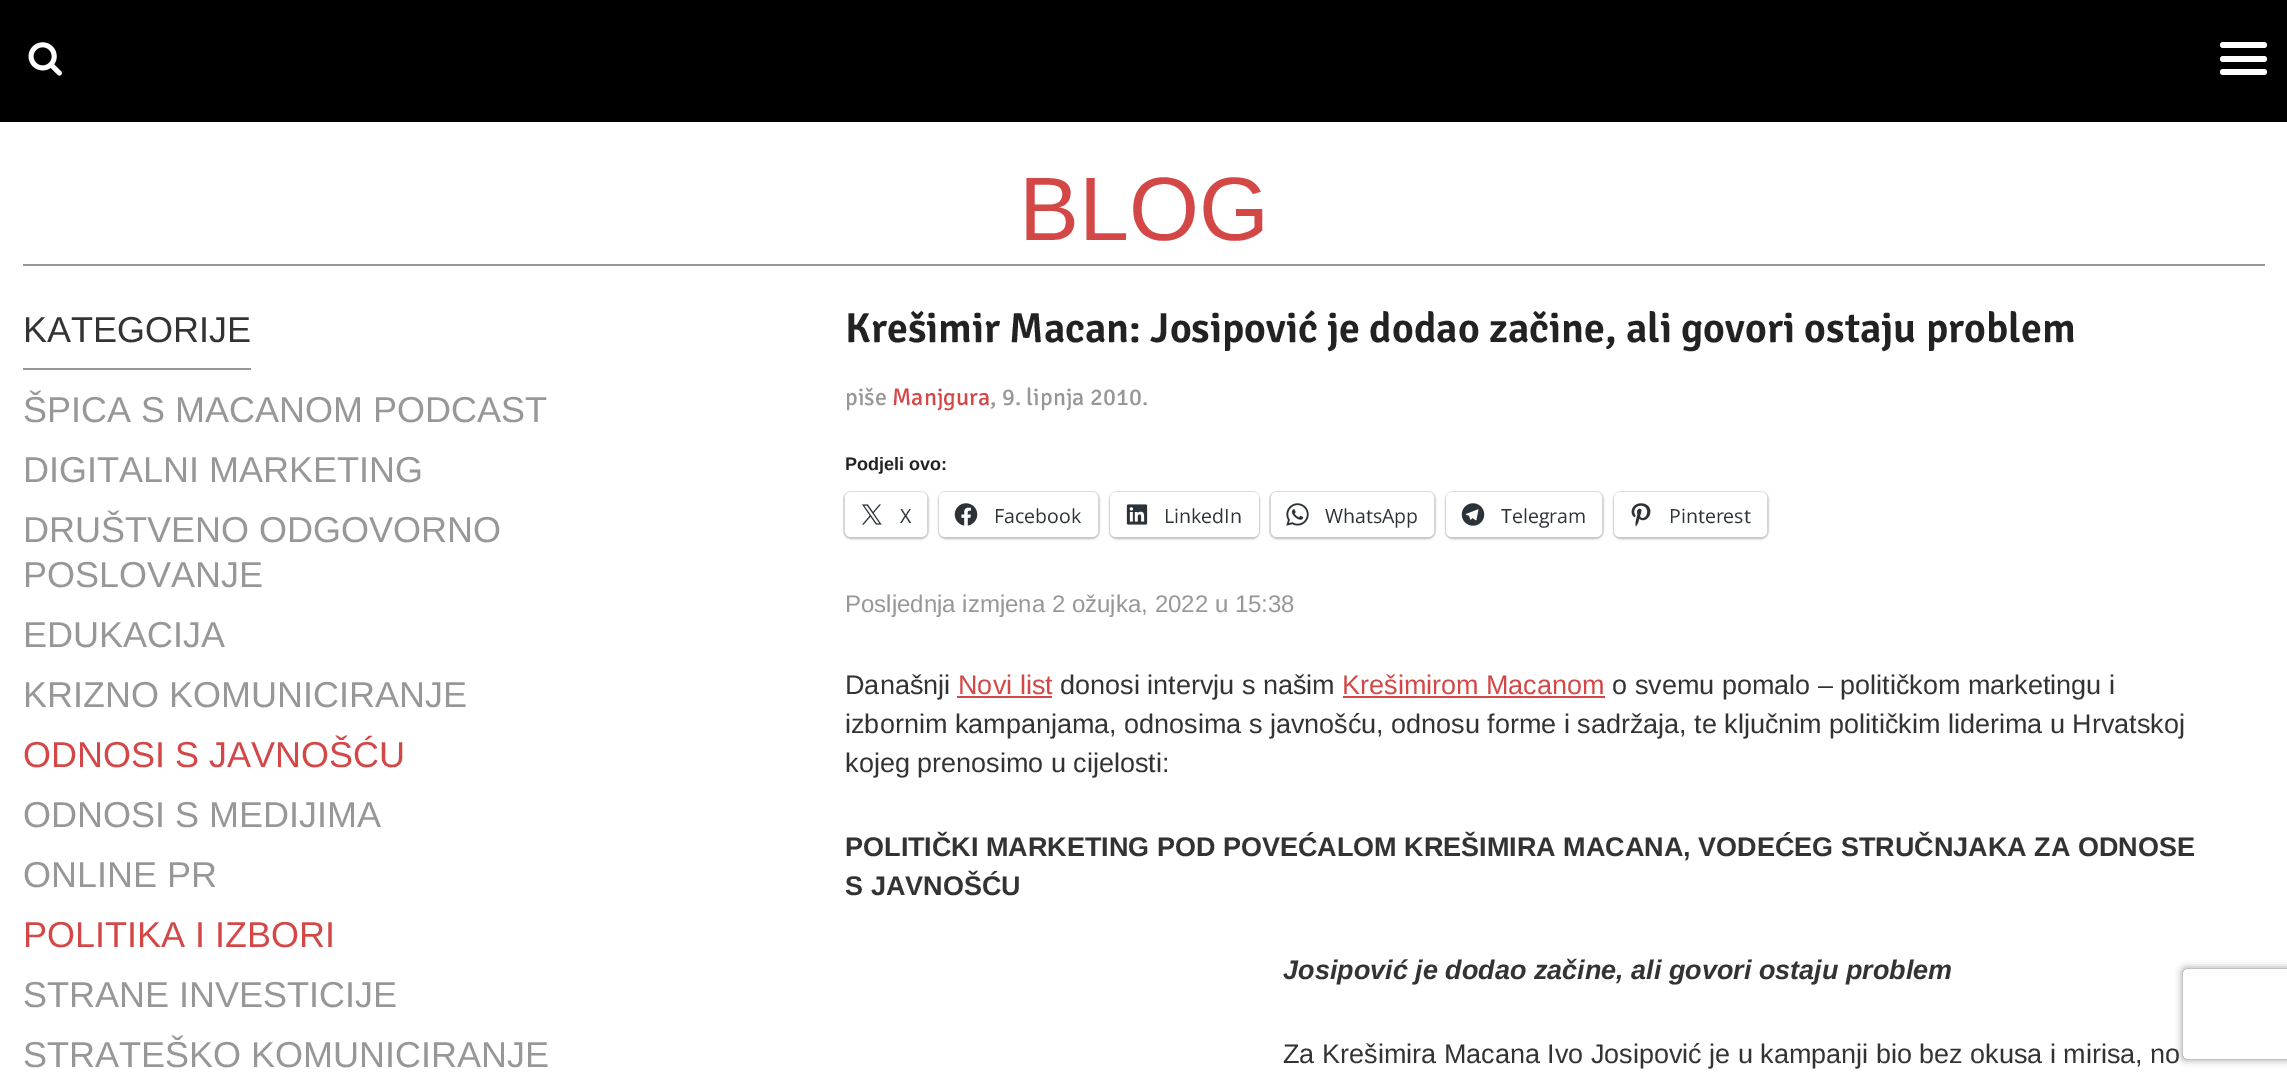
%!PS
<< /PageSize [2287 1079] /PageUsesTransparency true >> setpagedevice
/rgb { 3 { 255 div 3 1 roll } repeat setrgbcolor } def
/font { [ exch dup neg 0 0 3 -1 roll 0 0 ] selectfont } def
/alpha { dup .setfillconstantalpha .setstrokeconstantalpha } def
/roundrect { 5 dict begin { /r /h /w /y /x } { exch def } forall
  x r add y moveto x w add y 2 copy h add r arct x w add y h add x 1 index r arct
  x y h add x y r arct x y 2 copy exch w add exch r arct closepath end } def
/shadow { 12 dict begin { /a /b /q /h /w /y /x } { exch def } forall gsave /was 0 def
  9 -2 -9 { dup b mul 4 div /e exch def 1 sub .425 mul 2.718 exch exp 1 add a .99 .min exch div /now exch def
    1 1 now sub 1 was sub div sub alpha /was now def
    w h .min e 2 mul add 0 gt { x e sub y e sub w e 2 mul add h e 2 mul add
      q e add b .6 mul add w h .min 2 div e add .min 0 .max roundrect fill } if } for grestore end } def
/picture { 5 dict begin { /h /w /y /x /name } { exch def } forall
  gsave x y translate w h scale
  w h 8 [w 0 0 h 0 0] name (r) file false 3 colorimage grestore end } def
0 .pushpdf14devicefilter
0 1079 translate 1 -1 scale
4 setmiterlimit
255 255 255 rgb
0 0 2287 1079 rectfill
0 0 0 rgb
0 0 2287 122 rectfill
(img/1.rgb) 28 42 34 34 picture
255 255 255 rgb
2220 56 47 6 3 roundrect fill
2220 42 47 6 3 roundrect fill
2220 69 47 6 3 roundrect fill
151 151 151 rgb
23 264 2242 2 rectfill
23 368 228 2 rectfill
224 224 224 rgb
2 setlinewidth
844 492 84 46 7 roundrect stroke
0 0 0 rgb
845 494 82 45 6 1.5 0.12 shadow
255 255 255 rgb
845 492 82 45 6 roundrect fill
(img/2.rgb) 862 504 20 21 picture
224 224 224 rgb
939 492 160 46 7 roundrect stroke
0 0 0 rgb
939 494 159 45 6 1.5 0.12 shadow
255 255 255 rgb
939 492 159 45 6 roundrect fill
(img/3.rgb) 954 503 24 23 picture
224 224 224 rgb
1110 492 149 46 7 roundrect stroke
0 0 0 rgb
1110 494 149 45 6 1.5 0.12 shadow
255 255 255 rgb
1110 492 149 45 6 roundrect fill
(img/4.rgb) 1126 504 22 21 picture
224 224 224 rgb
1270 492 165 46 7 roundrect stroke
0 0 0 rgb
1271 494 163 45 6 1.5 0.12 shadow
255 255 255 rgb
1271 492 163 45 6 roundrect fill
(img/5.rgb) 1286 503 23 23 picture
224 224 224 rgb
1446 492 157 46 7 roundrect stroke
0 0 0 rgb
1446 494 156 45 6 1.5 0.12 shadow
255 255 255 rgb
1446 492 156 45 6 roundrect fill
(img/6.rgb) 1461 503 24 23 picture
224 224 224 rgb
1614 492 154 46 7 roundrect stroke
0 0 0 rgb
1614 494 153 45 6 1.5 0.12 shadow
255 255 255 rgb
1614 492 153 45 6 roundrect fill
(img/7.rgb) 1631 503 20 24 picture
211 71 71 rgb
957 696 95 2 rectfill
1343 696 262 2 rectfill
gsave
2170 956 moveto 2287 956 lineto 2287 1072 lineto 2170 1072 lineto closepath 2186 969 moveto 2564 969 lineto 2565.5 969 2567 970.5 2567 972 curveto 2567 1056 lineto 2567 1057.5 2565.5 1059 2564 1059 curveto 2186 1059 lineto 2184.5 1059 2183 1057.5 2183 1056 curveto 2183 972 lineto 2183 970.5 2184.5 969 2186 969 curveto closepath eoclip newpath
128 128 128 rgb
2183 969 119 90 3 4 1 shadow
grestore
/LiberationSans-Regular 90 font
1019 240 moveto (BLOG) show
/LiberationSans-Regular 36 font
51 51 51 rgb
23 342 moveto (KATEGORIJE) show
151 151 151 rgb
[
  [(ŠPICA S MACANOM PODCAST) 23 422]
  [(DIGITALNI MARKETING) 23 482]
  [(DRUŠTVENO ODGOVORNO) 23 542]
  [(POSLOVANJE) 23 587]
  [(EDUKACIJA) 23 647]
  [(KRIZNO KOMUNICIRANJE) 23 707]
] { aload pop moveto show } forall
211 71 71 rgb
23 767 moveto (ODNOSI S JAVNOŠĆU) show
151 151 151 rgb
23 827 moveto (ODNOSI S MEDIJIMA) show
23 887 moveto (ONLINE PR) show
211 71 71 rgb
23 947 moveto (POLITIKA I IZBORI) show
151 151 151 rgb
23 1007 moveto (STRANE INVESTICIJE) show
23 1067 moveto (STRATEŠKO KOMUNICIRANJE) show
/Signika-SemiBold 42 font
34 34 34 rgb
845 342 moveto (Krešimir Macan: Josipović je dodao začine, ali govori ostaju problem) show
/Signika-Regular 24 font
151 151 151 rgb
845 405 moveto (piše) show
211 71 71 rgb
892 405 moveto (Manjgura) show
151 151 151 rgb
990 405 moveto (, 9. lipnja 2010.) show
/LiberationSans-Bold 18 font
34 34 34 rgb
845 470 moveto (Podjeli ovo:) show
/OpenSans-Regular 19.5 font
44 51 56 rgb
[
  [(X) 900 523]
  [(Facebook) 994 523]
  [(LinkedIn) 1164 523]
  [(WhatsApp) 1325 523]
  [(Telegram) 1501 523]
  [(Pinterest) 1669 523]
] { aload pop moveto show } forall
/LiberationSans-Regular 24 font
151 151 151 rgb
845 612 moveto (Posljednja izmjena 2 ožujka, 2022 u 15:38) show
/LiberationSans-Regular 27 font
51 51 51 rgb
845 694 moveto (Današnji) show
211 71 71 rgb
958 694 moveto (Novi list) show
51 51 51 rgb
1060 694 moveto (donosi intervju s našim) show
211 71 71 rgb
1342 694 moveto (Krešimirom Macanom) show
51 51 51 rgb
[
  [(o svemu pomalo – političkom marketingu i) 1612 694]
  [(izbornim kampanjama, odnosima s javnošću, odnosu forme i sadržaja, te ključnim političkim liderima u Hrvatskoj) 845 733]
  [(kojeg prenosimo u cijelosti:) 845 772]
] { aload pop moveto show } forall
/LiberationSans-Bold 27 font
845 856 moveto (POLITIČKI MARKETING POD POVEĆALOM KREŠIMIRA MACANA, VODEĆEG STRUČNJAKA ZA ODNOSE) show
845 895 moveto (S JAVNOŠĆU) show
/LiberationSans-BoldItalic 27 font
1283 979 moveto (Josipović je dodao začine, ali govori ostaju problem) show
/LiberationSans-Regular 27 font
1283 1063 moveto (Za Krešimira Macana Ivo Josipović je u kampanji bio bez okusa i mirisa, no) show
.poppdf14devicefilter showpage
